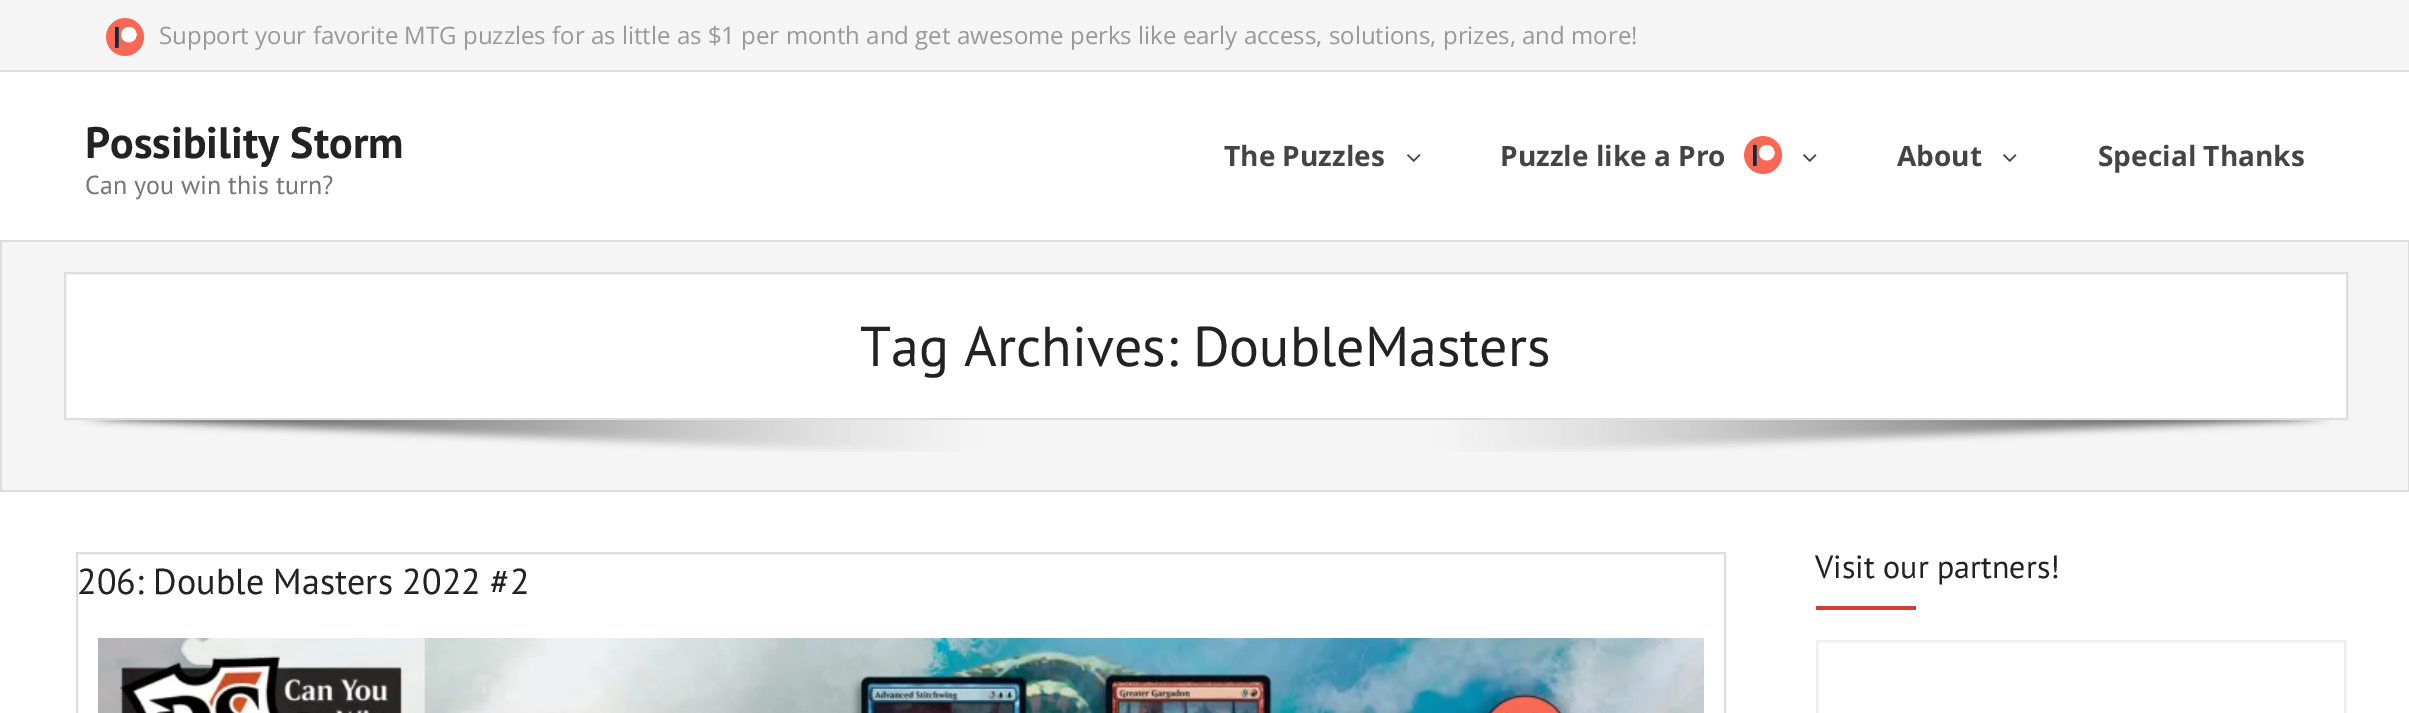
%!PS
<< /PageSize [2409 713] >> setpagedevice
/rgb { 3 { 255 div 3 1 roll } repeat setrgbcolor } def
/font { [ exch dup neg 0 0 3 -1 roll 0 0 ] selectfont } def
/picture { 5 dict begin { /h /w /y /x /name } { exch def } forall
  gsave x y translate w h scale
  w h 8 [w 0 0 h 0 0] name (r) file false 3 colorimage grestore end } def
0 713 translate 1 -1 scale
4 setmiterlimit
255 255 255 rgb
0 0 2409 713 rectfill
[
  [0 240 2409 2 221 221 221]
  [0 0 2409 70 245 245 245]
  [0 70 2409 2 221 221 221]
] { aload pop rgb rectfill } forall
(img/1.rgb) 106 18 38 38 picture
(img/2.rgb) 1407 154 14 8 picture
(img/3.rgb) 1744 136 38 38 picture
(img/2.rgb) 1803 154 14 8 picture
(img/2.rgb) 2003 154 14 8 picture
[
  [2 242 2406 248 245 245 245]
  [2408 242 1 250 221 221 221]
  [0 490 2409 2 221 221 221]
  [0 242 2 250 221 221 221]
] { aload pop rgb rectfill } forall
255 255 255 rgb
65 273 moveto 2347 273 lineto 2347 419 lineto 65 419 lineto closepath gsave fill grestore
221 221 221 rgb
2 setlinewidth
stroke
(img/4.rgb) 81 420 2250 32 picture
77 553 1648 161 rectstroke
(img/5.rgb) 98 638 1606 75 picture
211 61 51 rgb
1816 606 100 4 rectfill
238 238 238 rgb
1817 641 528 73 rectstroke
/OpenSans-Regular 24 font
153 153 153 rgb
159 44 moveto (Support your favorite MTG puzzles for as little as $1 per month and get awesome perks like early access, solutions, prizes, and more!) show
/PTSans-Bold 44 font
34 34 34 rgb
85 158 moveto (Possibility Storm) show
/PTSans-Regular 26 font
119 119 119 rgb
85 194 moveto (Can you win this turn?) show
/OpenSans-Bold 28 font
68 68 68 rgb
[
  [(The Puzzles) 1224 166]
  [(Puzzle like a Pro) 1500 166]
  [(About) 1897 166]
  [(Special Thanks) 2098 166]
] { aload pop moveto show } forall
/PTSans-Regular 56 font
34 34 34 rgb
860 366 moveto (Tag Archives: DoubleMasters) show
/PTSans-Regular 36 font
77 594 moveto (206: Double Masters 2022 #2) show
/PTSans-Regular 32 font
1815 578 moveto (Visit our partners!) show
showpage
